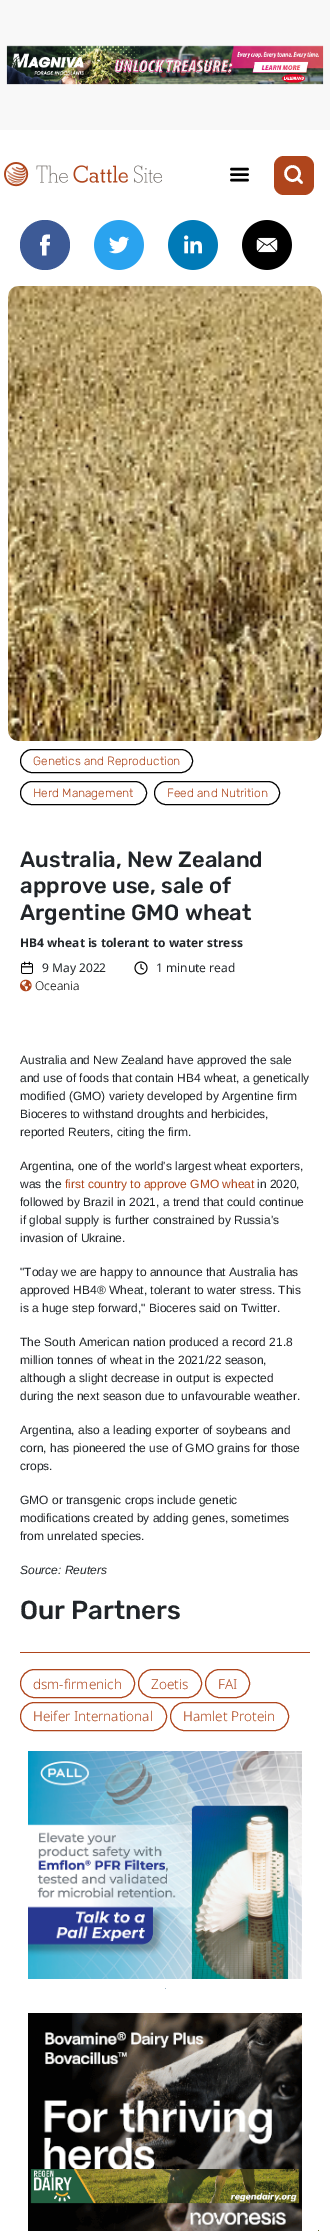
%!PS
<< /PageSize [330 2231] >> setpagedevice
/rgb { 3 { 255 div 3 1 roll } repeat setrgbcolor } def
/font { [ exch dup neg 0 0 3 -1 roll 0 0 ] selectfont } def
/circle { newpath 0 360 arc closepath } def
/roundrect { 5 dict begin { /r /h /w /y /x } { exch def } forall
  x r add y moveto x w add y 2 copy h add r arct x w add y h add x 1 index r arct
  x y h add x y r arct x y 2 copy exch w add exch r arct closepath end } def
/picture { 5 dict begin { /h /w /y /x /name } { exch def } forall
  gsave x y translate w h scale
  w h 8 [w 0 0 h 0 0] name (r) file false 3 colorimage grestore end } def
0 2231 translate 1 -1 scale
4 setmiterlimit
255 255 255 rgb
0 0 330 2231 rectfill
248 248 248 rgb
0 0 330 130 rectfill
(img/1.rgb) 6 45 318 40 picture
(img/2.rgb) 4 162 158 25 picture
0 0 0 rgb
2.6 setlinewidth
1 setlinecap
1 setlinejoin
231.5 174.5 moveto 247.5 174.5 lineto 231.5 169 moveto 247.5 169 lineto 231.5 180 moveto 247.5 180 lineto stroke
175 69 28 rgb
274 156 40 39 10 roundrect fill
255 255 255 rgb
0 setlinecap
0 setlinejoin
292.5 173.5 7 circle stroke
1 setlinecap
1 setlinejoin
301.5 182.5 moveto 297.5 178.5 lineto stroke
61 90 150 rgb
45 245 25 circle fill
255 255 255 rgb
46.5 255.5 moveto 42 255.5 lineto 42 245.5 lineto 40 245.5 lineto 40 242 lineto 42 242 lineto 42 235 43.5 234.5 50 234.5 curveto 50 238.5 lineto 46.5 238.5 46.5 238.5 46.5 242 curveto 50 242 lineto 49.5 245.5 lineto 46.5 245.5 lineto closepath fill
(img/3.rgb) 94 220 50 50 picture
(img/4.rgb) 168 220 50 50 picture
(img/5.rgb) 242 220 50 50 picture
(img/6.rgb) 8 286 314 455 picture
0 0 0 rgb
1 setlinewidth
0 setlinecap
0 setlinejoin
20.5 749.5 172 23 11.5 roundrect stroke
20.5 781.5 126 23 11.5 roundrect stroke
154.5 781.5 125 23 11.5 roundrect stroke
(img/7.rgb) 21 961 12 13 picture
(img/8.rgb) 134 961 14 14 picture
(img/9.rgb) 20 979 12 13 picture
175 69 28 rgb
20 1652 290 1 rectfill
20.5 1669.5 114 28 14 roundrect stroke
138.5 1669.5 63 28 14 roundrect stroke
205.5 1669.5 44 28 14 roundrect stroke
20.5 1702.5 146 28 14 roundrect stroke
170.5 1702.5 118 28 14 roundrect stroke
(img/10.rgb) 28 1751 274 228 picture
154 182 196 rgb
165 1988 1 1 rectfill
(img/11.rgb) 28 2013 274 218 picture
(img/12.rgb) 30 2169 270 35 picture
96 98 42 rgb
318 2230 1 1 rectfill
/Rubik-Light 12 font
174 69 27 rgb
[
  [(Genetics and Reproduction) 33 765]
  [(Herd Management) 33 797]
  [(Feed and Nutrition) 167 797]
] { aload pop moveto show } forall
/Rubik-Medium 22 font
33 37 41 rgb
[
  [(Australia, New Zealand) 20 867]
  [(approve use, sale of) 20 893]
  [(Argentine GMO wheat) 20 920]
] { aload pop moveto show } forall
/NotoSans-Bold 12 font
20 947 moveto (HB4 wheat is tolerant to water stress) show
/NotoSans-Regular 12 font
42 972 moveto (9 May 2022) show
156 972 moveto (1 minute read) show
/NotoSans-Light 12 font
0 0 0 rgb
35 990 moveto (Oceania) show
/LiberationSans-Regular 12 font
33 37 41 rgb
[
  [(Australia and New Zealand have approved the sale) 20 1064]
  [(and use of foods that contain HB4 wheat, a genetically) 20 1082]
  [(modified \(GMO\) variety developed by Argentine firm) 20 1100]
  [(Bioceres to withstand droughts and herbicides,) 20 1118]
  [(reported Reuters, citing the firm.) 20 1136]
  [(Argentina, one of the world's largest wheat exporters,) 20 1170]
  [(was the) 20 1188]
] { aload pop moveto show } forall
174 69 27 rgb
65 1188 moveto (first country to approve GMO wheat) show
33 37 41 rgb
[
  [(in 2020,) 257 1188]
  [(followed by Brazil in 2021, a trend that could continue) 20 1206]
  [(if global supply is further constrained by Russia's) 20 1224]
  [(invasion of Ukraine.) 20 1242]
  [("Today we are happy to announce that Australia has) 20 1276]
  [(approved HB4® Wheat, tolerant to water stress. This) 20 1294]
  [(is a huge step forward," Bioceres said on Twitter.) 20 1312]
  [(The South American nation produced a record 21.8) 20 1346]
  [(million tonnes of wheat in the 2021/22 season,) 20 1364]
  [(although a slight decrease in output is expected) 20 1382]
  [(during the next season due to unfavourable weather.) 20 1400]
  [(Argentina, also a leading exporter of soybeans and) 20 1434]
  [(corn, has pioneered the use of GMO grains for those) 20 1452]
  [(crops.) 20 1470]
  [(GMO or transgenic crops include genetic) 20 1504]
  [(modifications created by adding genes, sometimes) 20 1522]
  [(from unrelated species.) 20 1540]
] { aload pop moveto show } forall
/LiberationSans-Italic 12 font
20 1574 moveto (Source: Reuters) show
/Rubik-Medium 26 font
20 1619 moveto (Our Partners) show
/NotoSans-Light 13.5 font
174 69 27 rgb
[
  [(dsm-firmenich) 33 1689]
  [(Zoetis) 151 1689]
  [(FAI) 218 1689]
  [(Heifer International) 33 1721]
  [(Hamlet Protein) 183 1721]
] { aload pop moveto show } forall
showpage
